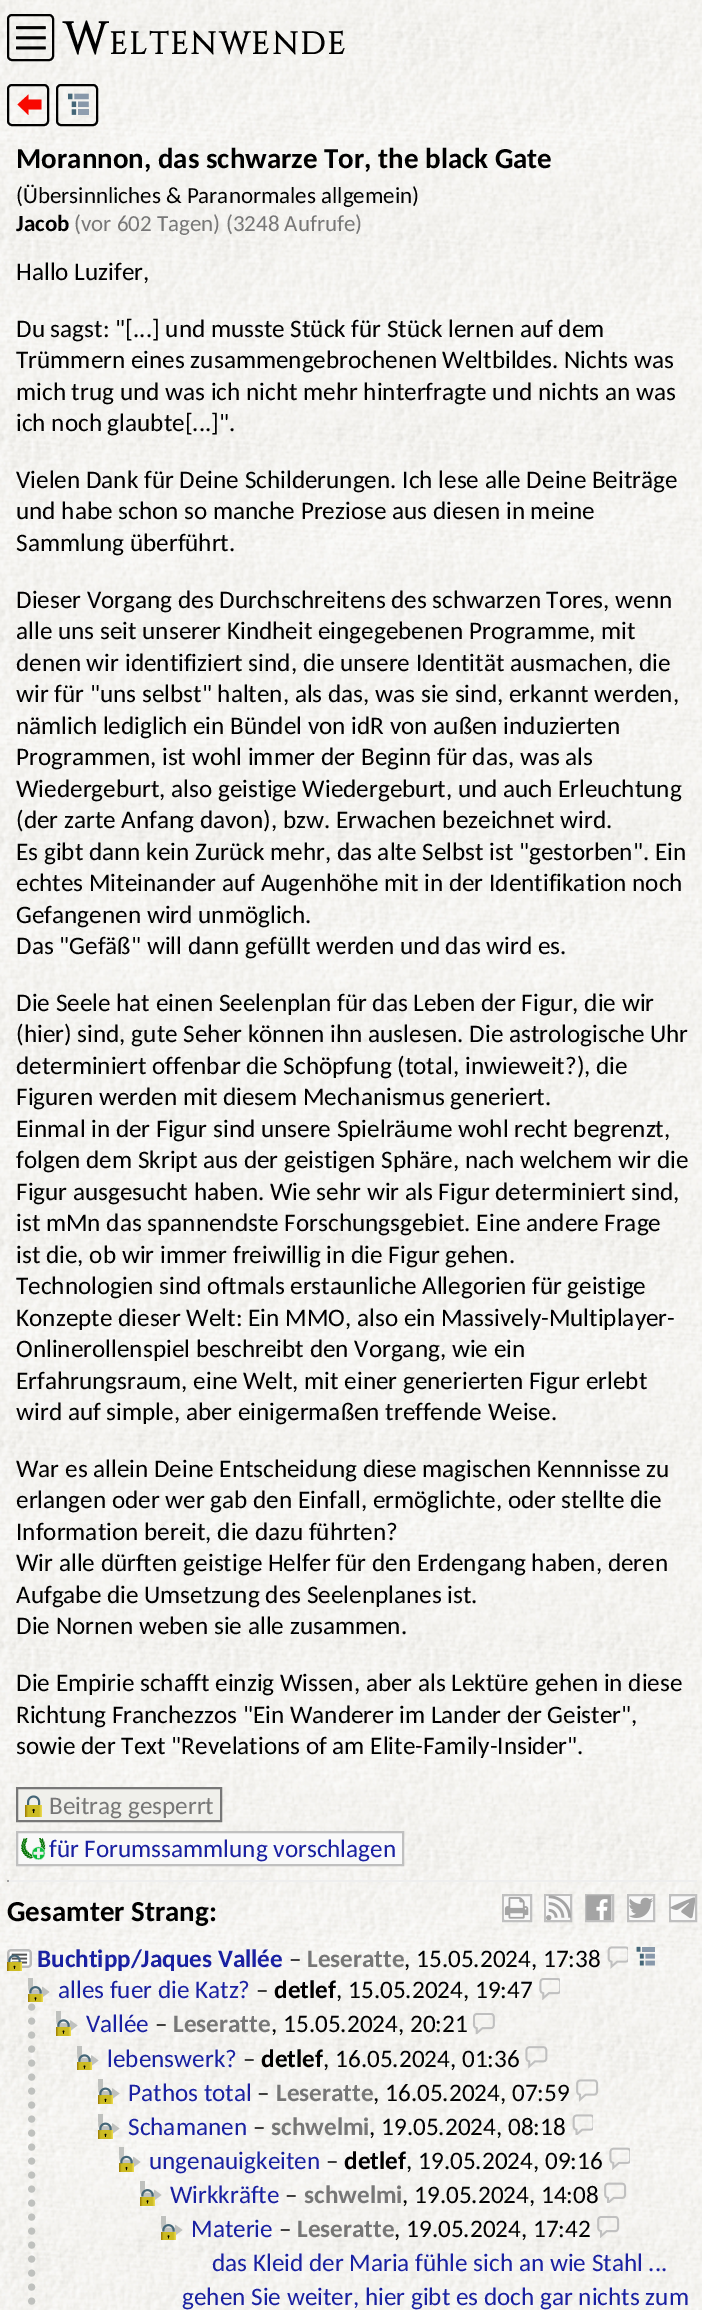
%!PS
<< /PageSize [702 2310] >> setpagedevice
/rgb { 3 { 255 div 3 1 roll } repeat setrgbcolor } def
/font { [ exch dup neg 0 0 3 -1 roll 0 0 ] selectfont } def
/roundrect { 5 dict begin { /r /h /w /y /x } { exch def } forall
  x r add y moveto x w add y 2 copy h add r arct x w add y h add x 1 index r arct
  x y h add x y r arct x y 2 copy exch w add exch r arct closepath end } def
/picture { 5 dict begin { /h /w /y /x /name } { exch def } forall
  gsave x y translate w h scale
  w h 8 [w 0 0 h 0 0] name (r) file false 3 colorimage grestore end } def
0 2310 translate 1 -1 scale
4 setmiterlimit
255 255 255 rgb
0 0 702 2310 rectfill
(img/1.rgb) 0 0 702 2310 picture
0 0 0 rgb
2 setlinewidth
8 15 45 45 4 roundrect stroke
(img/2.rgb) 16 26 30 24 picture
8 85 40 40 4 roundrect stroke
248 8 0 rgb
28.5 109.5 moveto 41.5 109.5 lineto 41.5 99.5 lineto 28.5 99.5 lineto 28.5 94.5 lineto 17.5 104.5 lineto 28.5 115 lineto closepath fill
0 0 0 rgb
57 85 40 40 4 roundrect stroke
(img/3.rgb) 68 93 21 22 picture
240 240 235 rgb
17 1788 moveto 221 1788 lineto 221 1821 lineto 17 1821 lineto closepath gsave fill grestore
119 119 119 rgb
stroke
(img/4.rgb) 25 1795 17 22 picture
249 249 249 rgb
17 1832 moveto 403 1832 lineto 403 1865 lineto 17 1865 lineto closepath gsave fill grestore
192 192 192 rgb
stroke
(img/5.rgb) 21 1838 25 22 picture
238 238 238 rgb
7 1880 690 2 rectfill
159 159 159 rgb
7 1880 2 2 rectfill
249 249 249 rgb
503 1895 moveto 531 1895 lineto 531 1921 lineto 503 1921 lineto closepath gsave fill grestore
192 192 192 rgb
stroke
(img/6.rgb) 504 1897 25 22 picture
249 249 249 rgb
545 1895 moveto 571 1895 lineto 571 1921 lineto 545 1921 lineto closepath gsave fill grestore
192 192 192 rgb
stroke
(img/7.rgb) 546 1895 25 25 picture
249 249 249 rgb
611 1896 1 24 rectfill
192 192 192 rgb
586 1895 27 26 rectstroke
(img/8.rgb) 586 1895 26 25 picture
249 249 249 rgb
628 1895 moveto 654 1895 lineto 654 1921 lineto 628 1921 lineto closepath gsave fill grestore
192 192 192 rgb
stroke
(img/9.rgb) 629 1897 24 21 picture
249 249 249 rgb
670 1895 moveto 696 1895 lineto 696 1921 lineto 670 1921 lineto closepath gsave fill grestore
192 192 192 rgb
stroke
(img/10.rgb) 670 1897 25 22 picture
(img/11.rgb) 7 1949 25 19 picture
(img/12.rgb) 607 1946 21 23 picture
(img/13.rgb) 636 1946 19 20 picture
(img/14.rgb) 7 1954 15 17 picture
gsave
28 1978 25 24 rectclip
191 193 190 rgb
4.7 setlinewidth
30.5 1977.5 moveto 30.5 1988 lineto 30.5 1990.5 32 1992 34.5 1992 curveto 42 1992 lineto stroke
grestore
191 193 190 rgb
42 1986.5 moveto 49.5 1992 lineto 42 1997.5 lineto closepath fill
(img/15.rgb) 28 1986 15 16 picture
(img/16.rgb) 539 1978 21 22 picture
7 setlinewidth
1 setlinecap
[0 14] 0 setdash
31.5 2007 moveto 31.5 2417 lineto stroke
4.7 setlinewidth
0 setlinecap
[] 0 setdash
58.5 2011 moveto 58.5 2021.5 lineto 58.5 2023.5 60 2025.5 62.5 2025.5 curveto 70 2025.5 lineto stroke
70 2020 moveto 77.5 2025.5 lineto 70 2031 lineto closepath fill
(img/17.rgb) 56 2019 15 17 picture
(img/18.rgb) 473 2013 22 21 picture
79.5 2046 moveto 79.5 2056.5 lineto 79.5 2058.5 81 2060.5 83.5 2060.5 curveto 91 2060.5 lineto stroke
91 2055 moveto 98.5 2060.5 lineto 91 2066 lineto closepath fill
(img/19.rgb) 77 2054 15 16 picture
(img/20.rgb) 525 2046 23 23 picture
100.5 2079 moveto 100.5 2089.5 lineto 100.5 2092 102 2093.5 104.5 2093.5 curveto 112 2093.5 lineto stroke
112 2088 moveto 119.5 2093.5 lineto 112 2099 lineto closepath fill
(img/21.rgb) 98 2087 15 17 picture
(img/22.rgb) 576 2079 23 23 picture
100.5 2114 moveto 100.5 2124.5 lineto 100.5 2127 102 2128.5 104.5 2128.5 curveto 112 2128.5 lineto stroke
112 2123 moveto 119.5 2128.5 lineto 112 2134 lineto closepath fill
(img/23.rgb) 98 2122 15 17 picture
(img/24.rgb) 572 2114 21 21 picture
121.5 2147 moveto 121.5 2158 lineto 121.5 2160 123 2162 125.5 2162 curveto 133 2162 lineto stroke
133 2156.5 moveto 140.5 2162 lineto 133 2167.5 lineto closepath fill
(img/25.rgb) 119 2155 15 17 picture
(img/26.rgb) 609 2147 21 23 picture
gsave
140 2181 25 26 rectclip
142.5 2180.5 moveto 142.5 2191 lineto 142.5 2193.5 144 2195 146.5 2195 curveto 154 2195 lineto stroke
grestore
154 2189.5 moveto 161.5 2195 lineto 154 2200.5 lineto closepath fill
(img/27.rgb) 140 2189 15 17 picture
(img/28.rgb) 604 2182 23 21 picture
gsave
161 2216 25 24 rectclip
163.5 2215.5 moveto 163.5 2226 lineto 163.5 2228.5 165 2230 167.5 2230 curveto 175 2230 lineto stroke
grestore
175 2224.5 moveto 182.5 2230 lineto 175 2235.5 lineto closepath fill
(img/29.rgb) 161 2224 15 16 picture
(img/30.rgb) 597 2216 23 22 picture
/Cinzel-Bold 45 font
0 0 0 rgb
63 54 moveto 2.1 0 (W) ashow
/Cinzel-Bold 31.25 font
109 54 moveto 2.1 0 (ELTENWENDE) ashow
/Carlito-Bold 29 font
16 168 moveto (Morannon, das schwarze Tor, the black Gate) show
/Carlito-Regular 23 font
16 203 moveto (\(Übersinnliches & Paranormales allgemein\)) show
/Carlito-Bold 23 font
16 231 moveto (Jacob) show
/Carlito-Regular 23 font
119 119 119 rgb
74 231 moveto (\(vor 602 Tagen\) \(3248 Aufrufe\)) show
/Carlito-Regular 25.2 font
0 0 0 rgb
[
  [(Hallo Luzifer,) 16 280]
  [(Du sagst: "[...] und musste Stück für Stück lernen auf dem) 16 337]
  [(Trümmern eines zusammengebrochenen Weltbildes. Nichts was) 16 368]
  [(mich trug und was ich nicht mehr hinterfragte und nichts an was) 16 400]
  [(ich noch glaubte[...]".) 16 431]
  [(Vielen Dank für Deine Schilderungen. Ich lese alle Deine Beiträge) 16 488]
  [(und habe schon so manche Preziose aus diesen in meine) 16 519]
  [(Sammlung überführt.) 16 551]
  [(Dieser Vorgang des Durchschreitens des schwarzen Tores, wenn) 16 608]
  [(alle uns seit unserer Kindheit eingegebenen Programme, mit) 16 639]
  [(denen wir identifiziert sind, die unsere Identität ausmachen, die) 16 671]
  [(wir für "uns selbst" halten, als das, was sie sind, erkannt werden,) 16 702]
  [(nämlich lediglich ein Bündel von idR von außen induzierten) 16 734]
  [(Programmen, ist wohl immer der Beginn für das, was als) 16 765]
  [(Wiedergeburt, also geistige Wiedergeburt, und auch Erleuchtung) 16 797]
  [(\(der zarte Anfang davon\), bzw. Erwachen bezeichnet wird.) 16 828]
  [(Es gibt dann kein Zurück mehr, das alte Selbst ist "gestorben". Ein) 16 860]
  [(echtes Miteinander auf Augenhöhe mit in der Identifikation noch) 16 891]
  [(Gefangenen wird unmöglich.) 16 923]
  [(Das "Gefäß" will dann gefüllt werden und das wird es.) 16 954]
  [(Die Seele hat einen Seelenplan für das Leben der Figur, die wir) 16 1011]
  [(\(hier\) sind, gute Seher können ihn auslesen. Die astrologische Uhr) 16 1042]
  [(determiniert offenbar die Schöpfung \(total, inwieweit?\), die) 16 1074]
  [(Figuren werden mit diesem Mechanismus generiert.) 16 1105]
  [(Einmal in der Figur sind unsere Spielräume wohl recht begrenzt,) 16 1137]
  [(folgen dem Skript aus der geistigen Sphäre, nach welchem wir die) 16 1168]
  [(Figur ausgesucht haben. Wie sehr wir als Figur determiniert sind,) 16 1200]
  [(ist mMn das spannendste Forschungsgebiet. Eine andere Frage) 16 1231]
  [(ist die, ob wir immer freiwillig in die Figur gehen.) 16 1263]
  [(Technologien sind oftmals erstaunliche Allegorien für geistige) 16 1294]
  [(Konzepte dieser Welt: Ein MMO, also ein Massively-Multiplayer-) 16 1326]
  [(Onlinerollenspiel beschreibt den Vorgang, wie ein) 16 1357]
  [(Erfahrungsraum, eine Welt, mit einer generierten Figur erlebt) 16 1389]
  [(wird auf simple, aber einigermaßen treffende Weise.) 16 1420]
  [(War es allein Deine Entscheidung diese magischen Kennnisse zu) 16 1477]
  [(erlangen oder wer gab den Einfall, ermöglichte, oder stellte die) 16 1508]
  [(Information bereit, die dazu führten?) 16 1540]
  [(Wir alle dürften geistige Helfer für den Erdengang haben, deren) 16 1571]
  [(Aufgabe die Umsetzung des Seelenplanes ist.) 16 1603]
  [(Die Nornen weben sie alle zusammen.) 16 1634]
  [(Die Empirie schafft einzig Wissen, aber als Lektüre gehen in diese) 16 1691]
  [(Richtung Franchezzos "Ein Wanderer im Lander der Geister",) 16 1723]
  [(sowie der Text "Revelations of am Elite-Family-Insider".) 16 1754]
] { aload pop moveto show } forall
119 119 119 rgb
49 1814 moveto (Beitrag gesperrt) show
26 33 162 rgb
49 1857 moveto (für Forumssammlung vorschlagen) show
/Carlito-Bold 29 font
0 0 0 rgb
7 1921 moveto (Gesamter Strang:) show
/Carlito-Bold 25.2 font
26 33 162 rgb
37 1967 moveto (Buchtipp/Jaques Vallée) show
119 119 119 rgb
307 1967 moveto (Leseratte) show
/Carlito-Regular 25.2 font
0 0 0 rgb
404 1967 moveto (, 15.05.2024, 17:38) show
289 1967 moveto (–) show
26 33 162 rgb
58 1998 moveto (alles fuer die Katz?) show
0 0 0 rgb
256 1998 moveto (–) show
/Carlito-Bold 25.2 font
274 1998 moveto (detlef) show
/Carlito-Regular 25.2 font
336 1998 moveto (, 15.05.2024, 19:47) show
26 33 162 rgb
86 2032 moveto (Vallée) show
0 0 0 rgb
155 2032 moveto (–) show
/Carlito-Bold 25.2 font
119 119 119 rgb
173 2032 moveto (Leseratte) show
/Carlito-Regular 25.2 font
0 0 0 rgb
271 2032 moveto (, 15.05.2024, 20:21) show
26 33 162 rgb
107 2067 moveto (lebenswerk?) show
0 0 0 rgb
243 2067 moveto (–) show
/Carlito-Bold 25.2 font
261 2067 moveto (detlef) show
/Carlito-Regular 25.2 font
323 2067 moveto (, 16.05.2024, 01:36) show
26 33 162 rgb
128 2101 moveto (Pathos total) show
0 0 0 rgb
257 2101 moveto (–) show
/Carlito-Bold 25.2 font
119 119 119 rgb
276 2101 moveto (Leseratte) show
/Carlito-Regular 25.2 font
0 0 0 rgb
373 2101 moveto (, 16.05.2024, 07:59) show
26 33 162 rgb
128 2135 moveto (Schamanen) show
0 0 0 rgb
253 2135 moveto (–) show
/Carlito-Bold 25.2 font
119 119 119 rgb
271 2135 moveto (schwelmi) show
/Carlito-Regular 25.2 font
0 0 0 rgb
369 2135 moveto (, 19.05.2024, 08:18) show
26 33 162 rgb
149 2169 moveto (ungenauigkeiten) show
0 0 0 rgb
326 2169 moveto (–) show
/Carlito-Bold 25.2 font
344 2169 moveto (detlef) show
/Carlito-Regular 25.2 font
406 2169 moveto (, 19.05.2024, 09:16) show
26 33 162 rgb
170 2203 moveto (Wirkkräfte) show
0 0 0 rgb
285 2203 moveto (–) show
/Carlito-Bold 25.2 font
119 119 119 rgb
304 2203 moveto (schwelmi) show
/Carlito-Regular 25.2 font
0 0 0 rgb
402 2203 moveto (, 19.05.2024, 14:08) show
26 33 162 rgb
191 2237 moveto (Materie) show
0 0 0 rgb
279 2237 moveto (–) show
/Carlito-Bold 25.2 font
119 119 119 rgb
297 2237 moveto (Leseratte) show
/Carlito-Regular 25.2 font
0 0 0 rgb
394 2237 moveto (, 19.05.2024, 17:42) show
26 33 162 rgb
212 2271 moveto (das Kleid der Maria fühle sich an wie Stahl ...) show
182 2305 moveto (gehen Sie weiter, hier gibt es doch gar nichts zum) show
showpage
